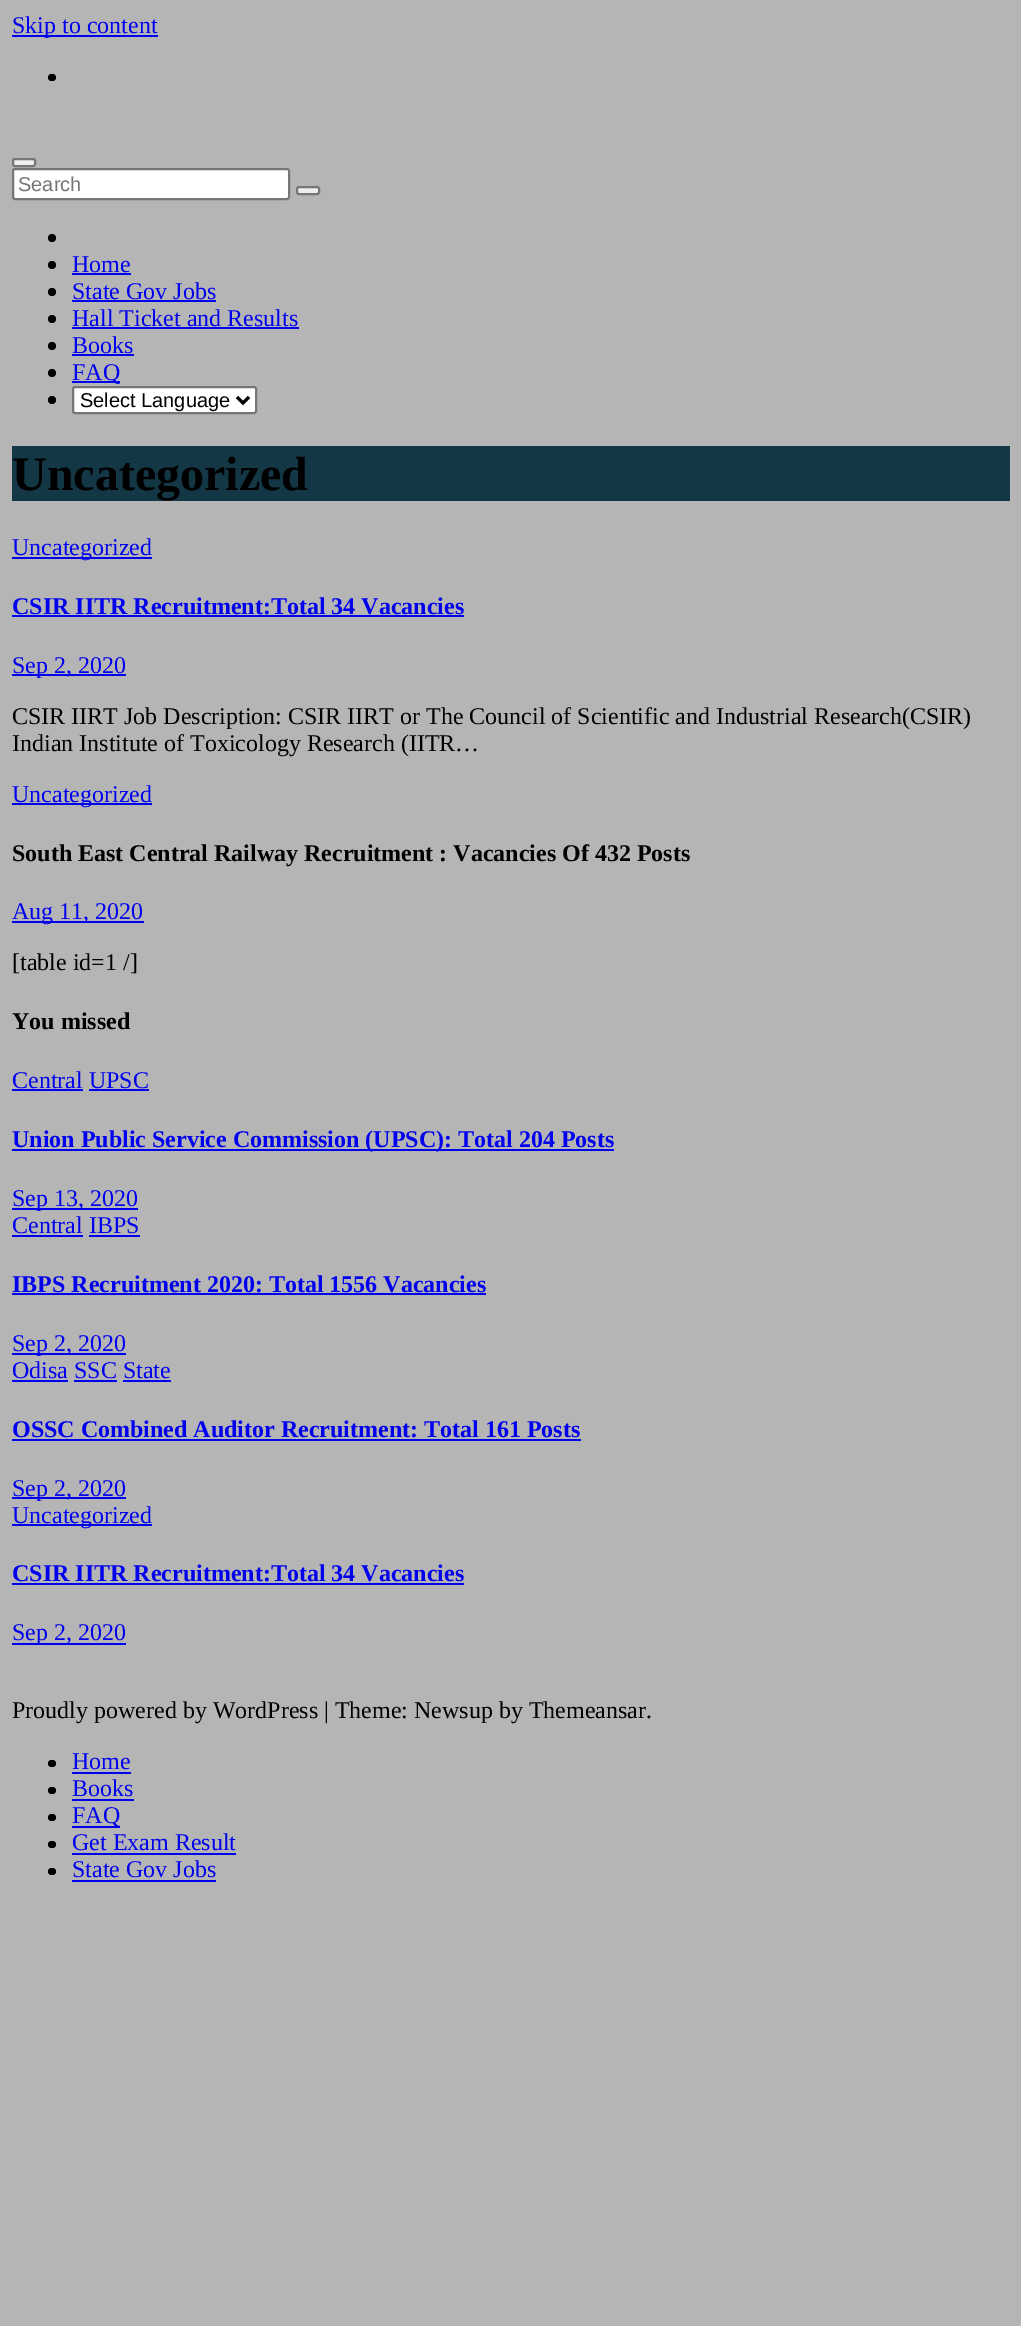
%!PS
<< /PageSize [1021 2326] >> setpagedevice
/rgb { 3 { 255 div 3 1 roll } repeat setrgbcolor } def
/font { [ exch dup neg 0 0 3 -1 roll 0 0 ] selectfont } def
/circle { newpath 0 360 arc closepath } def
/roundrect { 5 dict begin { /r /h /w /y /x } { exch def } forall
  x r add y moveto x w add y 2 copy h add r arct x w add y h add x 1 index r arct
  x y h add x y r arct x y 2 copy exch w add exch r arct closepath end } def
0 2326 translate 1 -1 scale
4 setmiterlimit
181 181 181 rgb
0 0 1021 2326 rectfill
0 0 238 rgb
12 35 146 2 rectfill
0 0 0 rgb
48 74 8 7 3.5 roundrect fill
239 239 239 rgb
13 159 22 7 2 roundrect gsave fill grestore
118 118 118 rgb
2 setlinewidth
stroke
255 255 255 rgb
13 169 276 30 2 roundrect gsave fill grestore
118 118 118 rgb
stroke
239 239 239 rgb
297 187 22 7 2 roundrect gsave fill grestore
118 118 118 rgb
stroke
0 0 0 rgb
52 238 4 circle fill
52 265 4 circle fill
0 0 238 rgb
72 273 59 2 rectfill
0 0 0 rgb
52 292 4 circle fill
0 0 238 rgb
72 300 144 2 rectfill
0 0 0 rgb
52 319 4 circle fill
0 0 238 rgb
72 327 227 2 rectfill
0 0 0 rgb
52 346 4 circle fill
0 0 238 rgb
72 354 62 2 rectfill
0 0 0 rgb
52 373 4 circle fill
0 0 238 rgb
72 381 48 2 rectfill
0 0 0 rgb
52 400 4 circle fill
255 255 255 rgb
73 387 183 26 2 roundrect gsave fill grestore
118 118 118 rgb
stroke
0 0 0 rgb
3 setlinewidth
237 397 moveto 243 403 lineto 249 397 lineto stroke
[
  [12 446 998 55 20 55 69]
  [12 557 140 2 0 0 238]
  [12 615 452 2 0 0 238]
  [12 674 114 2 0 0 238]
  [12 803 140 2 0 0 238]
  [12 921 132 2 0 0 238]
  [12 1089 71 2 0 0 238]
  [89 1089 60 2 0 0 238]
  [12 1149 602 2 0 0 238]
  [12 1208 126 2 0 0 238]
  [12 1235 71 2 0 0 238]
  [89 1235 51 2 0 0 238]
  [12 1293 474 2 0 0 238]
  [12 1353 114 2 0 0 238]
  [12 1380 56 2 0 0 238]
  [74 1380 43 2 0 0 238]
  [123 1380 48 2 0 0 238]
  [12 1439 569 2 0 0 238]
  [12 1497 114 2 0 0 238]
  [12 1524 140 2 0 0 238]
  [12 1583 452 2 0 0 238]
  [12 1643 114 2 0 0 238]
] { aload pop rgb rectfill } forall
0 0 0 rgb
48 1760 8 7 3.5 roundrect fill
0 0 238 rgb
72 1772 59 2 rectfill
0 0 0 rgb
48 1787 8 7 3.5 roundrect fill
0 0 238 rgb
72 1799 62 2 rectfill
0 0 0 rgb
48 1814 8 7 3.5 roundrect fill
0 0 238 rgb
72 1826 48 2 rectfill
0 0 0 rgb
48 1841 8 7 3.5 roundrect fill
0 0 238 rgb
72 1853 164 2 rectfill
0 0 0 rgb
48 1868 8 7 3.5 roundrect fill
0 0 238 rgb
72 1880 144 2 rectfill
/LiberationSerif-Regular 24 font
12 33 moveto (Skip to content) show
/LiberationSans-Regular 20 font
117 117 117 rgb
18 191 moveto (Search) show
/LiberationSerif-Regular 24 font
0 0 238 rgb
[
  [(Home) 72 272]
  [(State Gov Jobs) 72 299]
  [(Hall Ticket and Results) 72 326]
  [(Books) 72 353]
  [(FAQ) 72 380]
] { aload pop moveto show } forall
/LiberationSans-Regular 20 font
0 0 0 rgb
80 407 moveto (Select Language) show
/LiberationSerif-Bold 48 font
12 490 moveto (Uncategorized) show
/LiberationSerif-Regular 24 font
0 0 238 rgb
12 555 moveto (Uncategorized) show
/LiberationSerif-Bold 24 font
12 614 moveto (CSIR IITR Recruitment:Total 34 Vacancies) show
/LiberationSerif-Regular 24 font
12 673 moveto (Sep 2, 2020) show
0 0 0 rgb
12 724 moveto (CSIR IIRT Job Description: CSIR IIRT or The Council of Scientific and Industrial Research\(CSIR\)) show
12 751 moveto (Indian Institute of Toxicology Research \(IITR…) show
0 0 238 rgb
12 802 moveto (Uncategorized) show
/LiberationSerif-Bold 24 font
0 0 0 rgb
12 861 moveto (South East Central Railway Recruitment : Vacancies Of 432 Posts) show
/LiberationSerif-Regular 24 font
0 0 238 rgb
12 919 moveto (Aug 11, 2020) show
0 0 0 rgb
12 970 moveto ([table id=1 /]) show
/LiberationSerif-Bold 24 font
12 1029 moveto (You missed) show
/LiberationSerif-Regular 24 font
0 0 238 rgb
12 1088 moveto (Central UPSC) show
/LiberationSerif-Bold 24 font
12 1147 moveto (Union Public Service Commission \(UPSC\): Total 204 Posts) show
/LiberationSerif-Regular 24 font
12 1206 moveto (Sep 13, 2020) show
12 1233 moveto (Central IBPS) show
/LiberationSerif-Bold 24 font
12 1292 moveto (IBPS Recruitment 2020: Total 1556 Vacancies) show
/LiberationSerif-Regular 24 font
12 1351 moveto (Sep 2, 2020) show
12 1378 moveto (Odisa SSC State) show
/LiberationSerif-Bold 24 font
12 1437 moveto (OSSC Combined Auditor Recruitment: Total 161 Posts) show
/LiberationSerif-Regular 24 font
12 1496 moveto (Sep 2, 2020) show
12 1523 moveto (Uncategorized) show
/LiberationSerif-Bold 24 font
12 1581 moveto (CSIR IITR Recruitment:Total 34 Vacancies) show
/LiberationSerif-Regular 24 font
12 1640 moveto (Sep 2, 2020) show
0 0 0 rgb
12 1718 moveto (Proudly powered by WordPress | Theme: Newsup by Themeansar.) show
0 0 238 rgb
[
  [(Home) 72 1769]
  [(Books) 72 1796]
  [(FAQ) 72 1823]
  [(Get Exam Result) 72 1850]
  [(State Gov Jobs) 72 1877]
] { aload pop moveto show } forall
showpage
